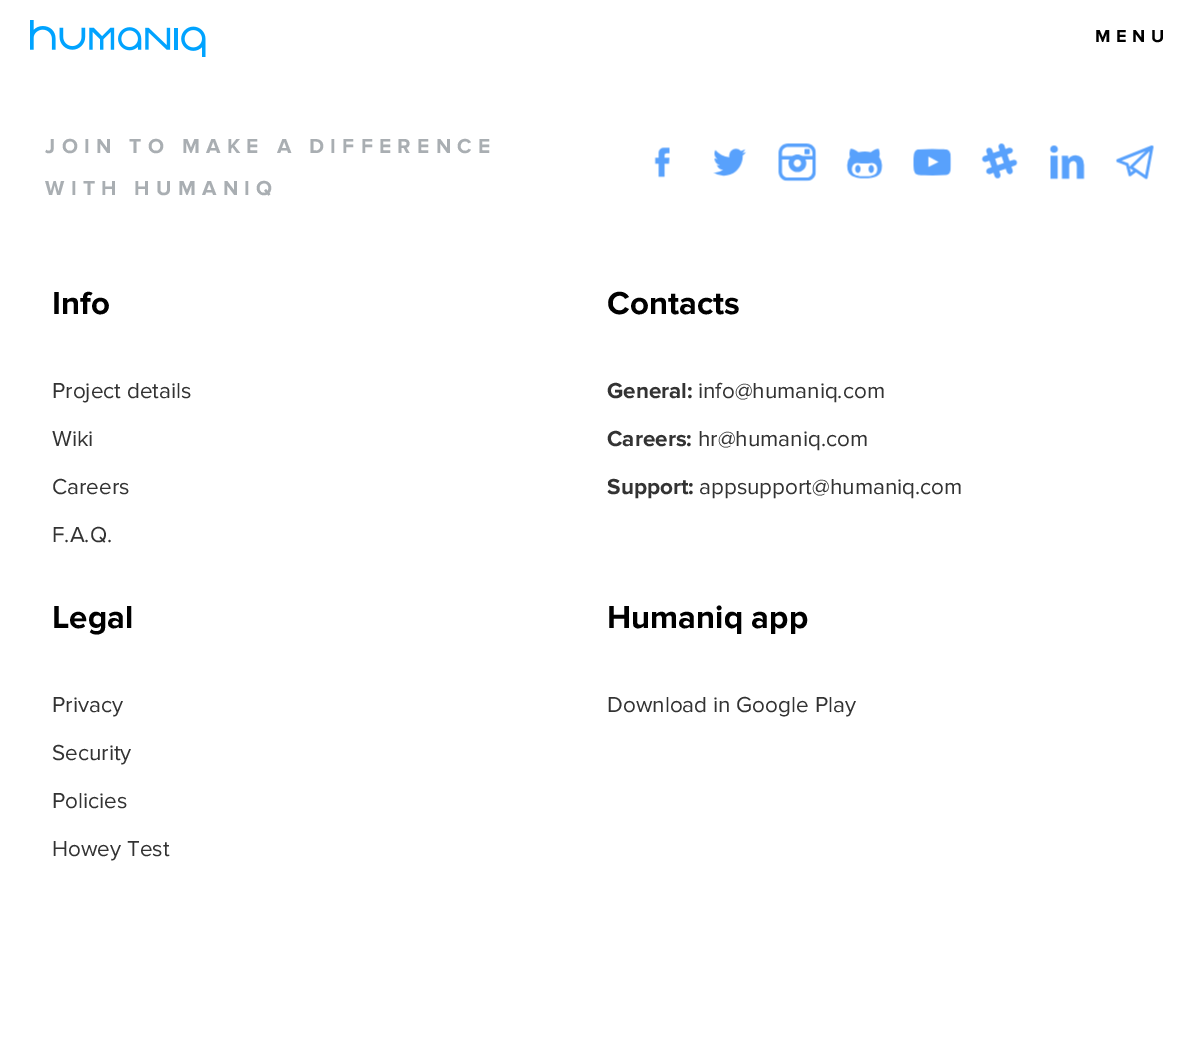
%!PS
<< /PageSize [1198 1041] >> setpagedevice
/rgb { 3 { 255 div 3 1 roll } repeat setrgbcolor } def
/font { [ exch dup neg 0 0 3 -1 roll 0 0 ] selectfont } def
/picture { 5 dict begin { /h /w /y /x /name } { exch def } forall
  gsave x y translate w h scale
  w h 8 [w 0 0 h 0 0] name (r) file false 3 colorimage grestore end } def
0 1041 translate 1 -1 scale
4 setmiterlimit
255 255 255 rgb
0 0 1198 1041 rectfill
(img/1.rgb) 30 20 176 37 picture
(img/2.rgb) 654 147 16 31 picture
(img/3.rgb) 713 148 34 29 picture
(img/4.rgb) 778 143 39 39 picture
(img/5.rgb) 846 148 37 31 picture
(img/6.rgb) 913 148 39 28 picture
(img/7.rgb) 981 143 37 36 picture
(img/8.rgb) 1049 145 36 35 picture
(img/9.rgb) 1115 145 39 35 picture
/ProximaNova-Bold 18 font
0 0 0 rgb
1095 42 moveto 5.5 0 (MENU) ashow
/ProximaNova-Bold 21 font
169 174 178 rgb
45 153 moveto 6.3 0 (JOIN TO MAKE A DIFFERENCE) ashow
45 195 moveto 6.3 0 (WITH HUMANIQ) ashow
/ProximaNova-Bold 33 font
0 0 0 rgb
52 314 moveto (Info) show
/ProximaNova-Regular 22.5 font
51 51 51 rgb
[
  [(Project details) 52 398]
  [(Wiki) 52 446]
  [(Careers) 52 494]
  [(F.A.Q.) 52 542]
] { aload pop moveto show } forall
/ProximaNova-Bold 33 font
0 0 0 rgb
607 314 moveto (Contacts) show
/ProximaNova-Bold 22.5 font
51 51 51 rgb
607 398 moveto (General:) show
/ProximaNova-Regular 22.5 font
698 398 moveto (info@humaniq.com) show
/ProximaNova-Bold 22.5 font
607 446 moveto (Careers:) show
/ProximaNova-Regular 22.5 font
698 446 moveto (hr@humaniq.com) show
/ProximaNova-Bold 22.5 font
607 494 moveto (Support:) show
/ProximaNova-Regular 22.5 font
699 494 moveto (appsupport@humaniq.com) show
/ProximaNova-Bold 33 font
0 0 0 rgb
52 628 moveto (Legal) show
/ProximaNova-Regular 22.5 font
51 51 51 rgb
[
  [(Privacy) 52 712]
  [(Security) 52 760]
  [(Policies) 52 808]
  [(Howey Test) 52 856]
] { aload pop moveto show } forall
/ProximaNova-Bold 33 font
0 0 0 rgb
607 628 moveto (Humaniq app) show
/ProximaNova-Regular 22.5 font
51 51 51 rgb
607 712 moveto (Download in Google Play) show
showpage
